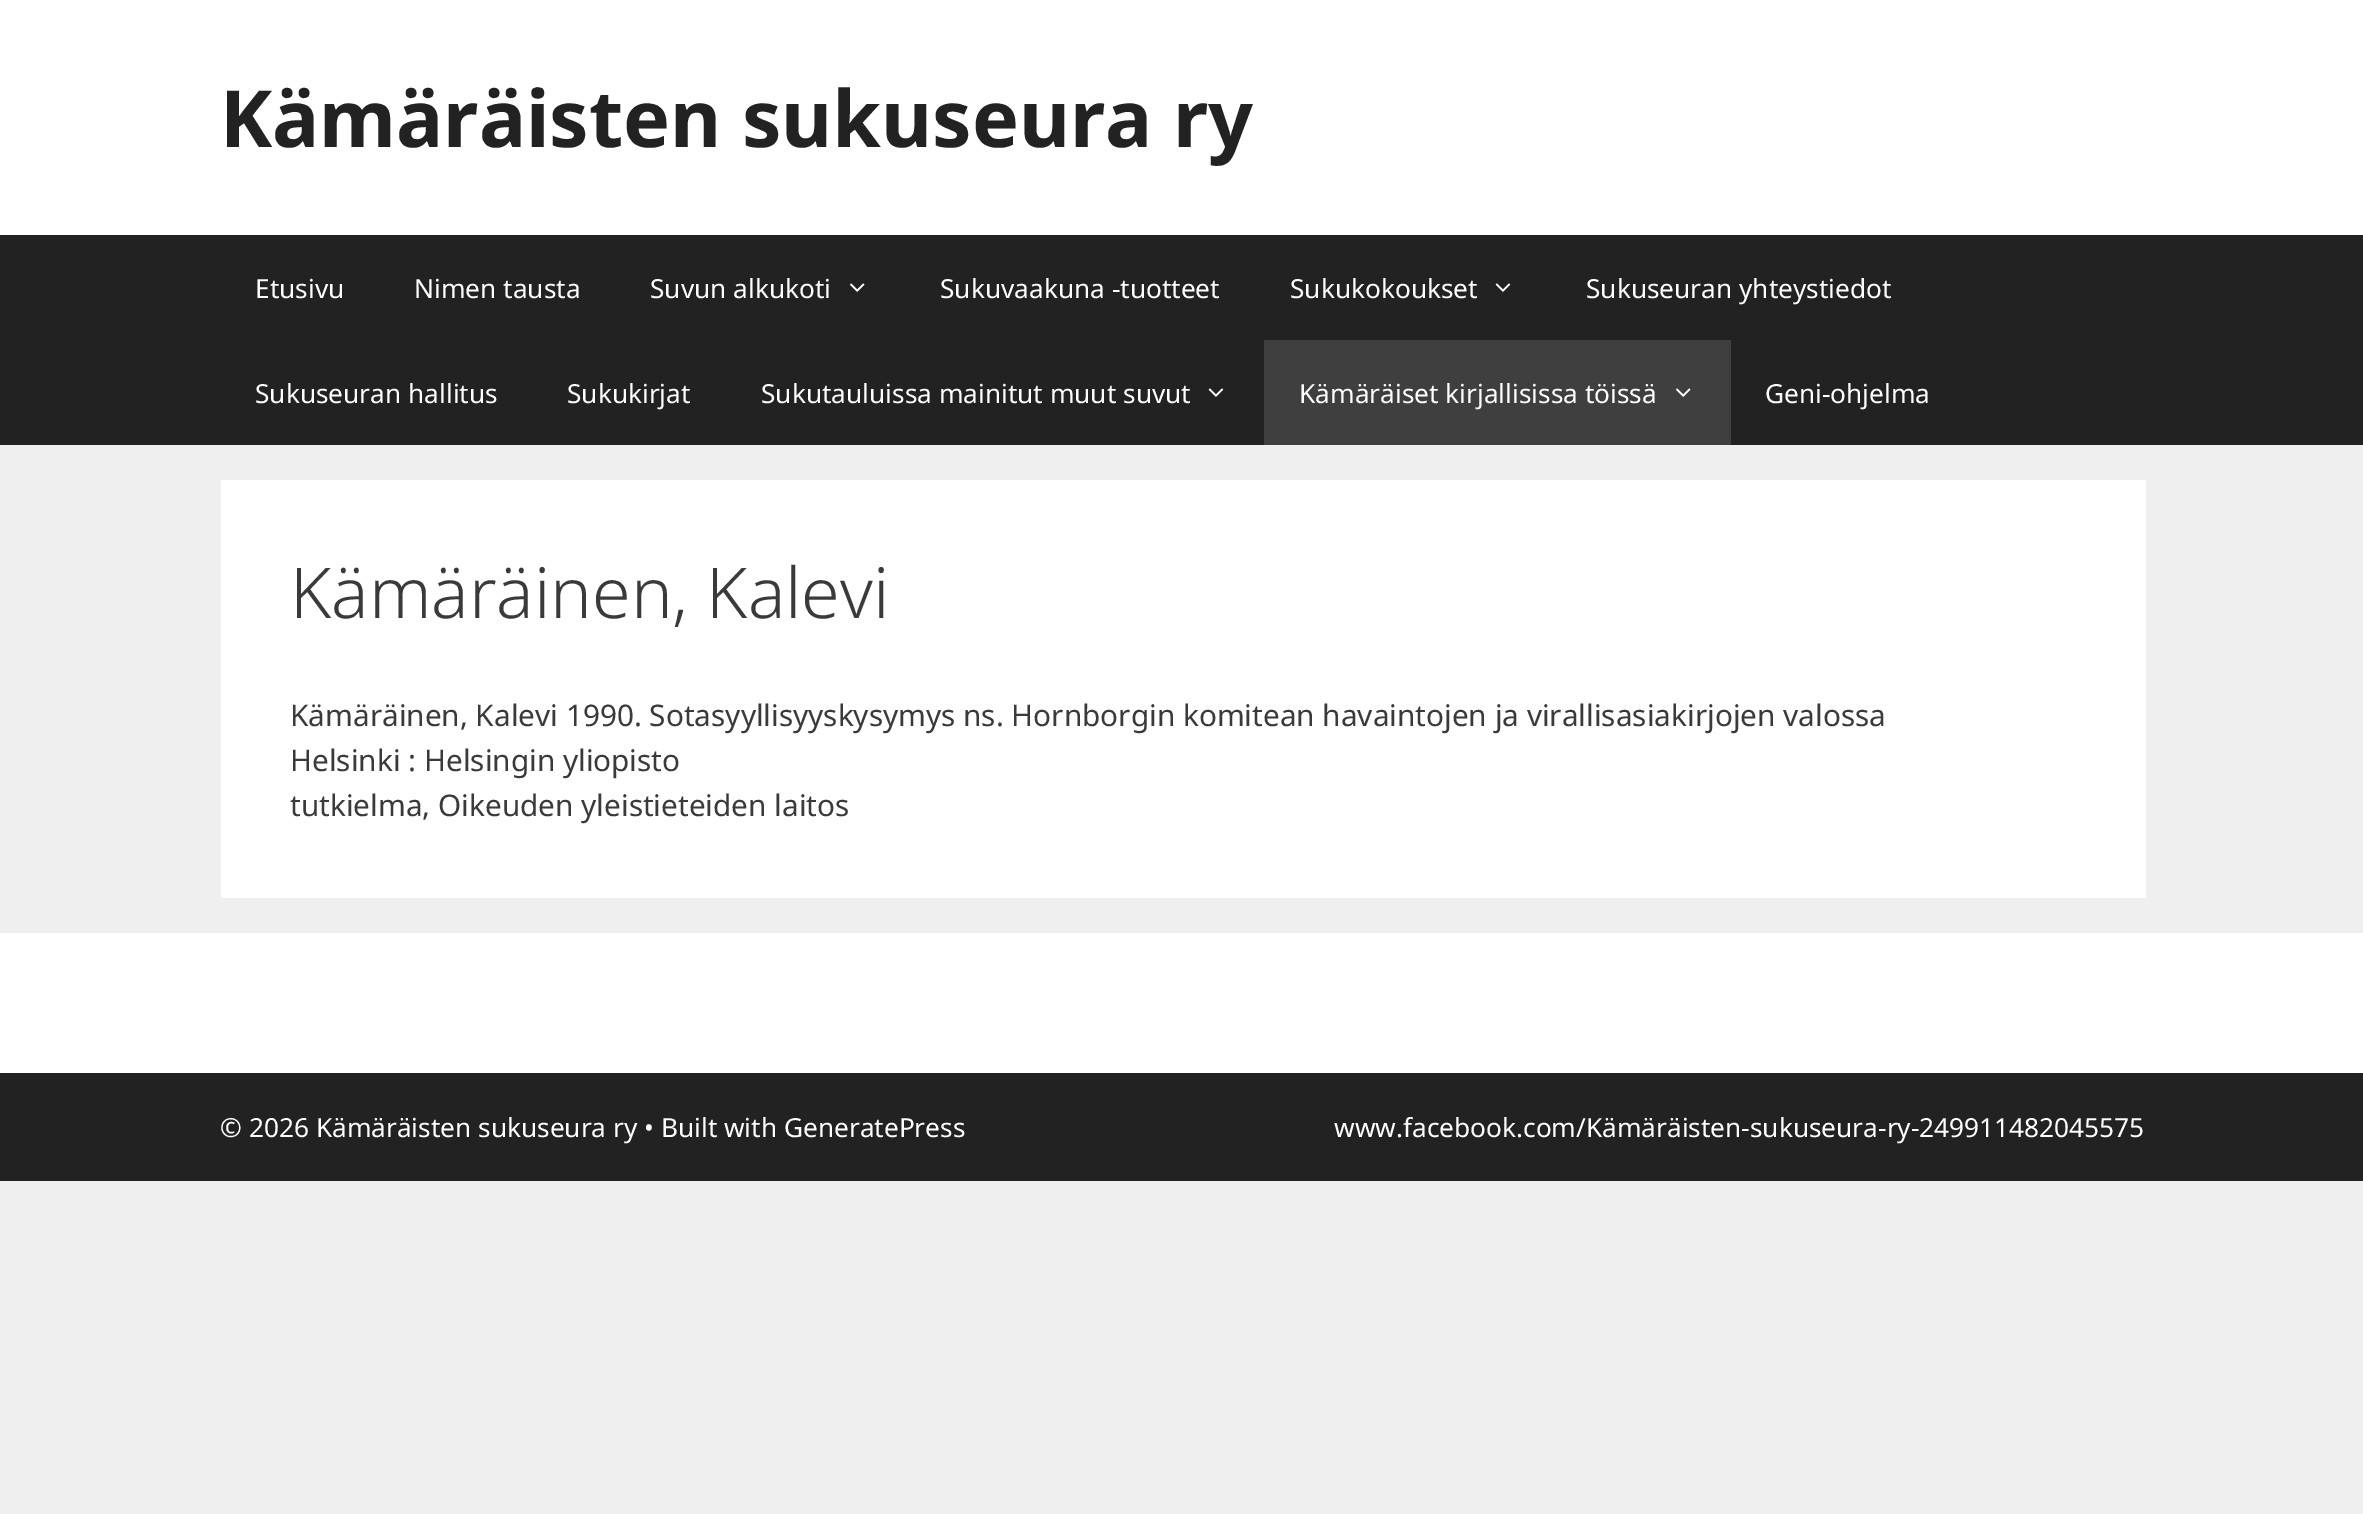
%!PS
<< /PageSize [2363 1514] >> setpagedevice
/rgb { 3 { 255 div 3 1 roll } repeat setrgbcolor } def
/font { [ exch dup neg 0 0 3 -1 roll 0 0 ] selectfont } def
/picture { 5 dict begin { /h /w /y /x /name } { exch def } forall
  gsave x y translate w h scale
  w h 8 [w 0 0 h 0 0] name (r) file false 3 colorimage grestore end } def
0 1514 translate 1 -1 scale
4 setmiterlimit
239 239 239 rgb
0 0 2363 1514 rectfill
255 255 255 rgb
0 0 2363 235 rectfill
34 34 34 rgb
0 235 2363 210 rectfill
(img/1.rgb) 850 283 15 9 picture
(img/2.rgb) 1495 283 16 9 picture
(img/2.rgb) 1208 388 16 9 picture
63 63 63 rgb
1264 340 467 105 rectfill
(img/3.rgb) 1676 388 15 9 picture
[
  [221 480 1925 418 255 255 255]
  [0 933 2363 140 255 255 255]
  [0 1073 2363 108 34 34 34]
] { aload pop rgb rectfill } forall
/NotoSans-Bold 78.75 font
220 147 moveto (Kämäräisten sukuseura ry) show
/NotoSans-Regular 26.25 font
255 255 255 rgb
[
  [(Etusivu) 255 298]
  [(Nimen tausta) 414 298]
  [(Suvun alkukoti) 650 298]
  [(Sukuvaakuna -tuotteet) 940 298]
  [(Sukukokoukset) 1290 298]
  [(Sukuseuran yhteystiedot) 1586 298]
  [(Sukuseuran hallitus) 255 403]
  [(Sukukirjat) 567 403]
  [(Sukutauluissa mainitut muut suvut) 761 403]
  [(Kämäräiset kirjallisissa töissä) 1299 403]
  [(Geni-ohjelma) 1765 403]
] { aload pop moveto show } forall
/NotoSans-Light 70 font
58 58 58 rgb
290 618 moveto (Kämäräinen, Kalevi) show
/NotoSans-Regular 29.75 font
[
  [(Kämäräinen, Kalevi 1990. Sotasyyllisyyskysymys ns. Hornborgin komitean havaintojen ja virallisasiakirjojen valossa) 290 726]
  [(Helsinki : Helsingin yliopisto) 290 771]
  [(tutkielma, Oikeuden yleistieteiden laitos) 290 816]
] { aload pop moveto show } forall
/NotoSans-Regular 26.25 font
255 255 255 rgb
220 1137 moveto (© 2026 Kämäräisten sukuseura ry • Built with GeneratePress) show
1334 1137 moveto (www.facebook.com/Kämäräisten-sukuseura-ry-249911482045575) show
showpage
